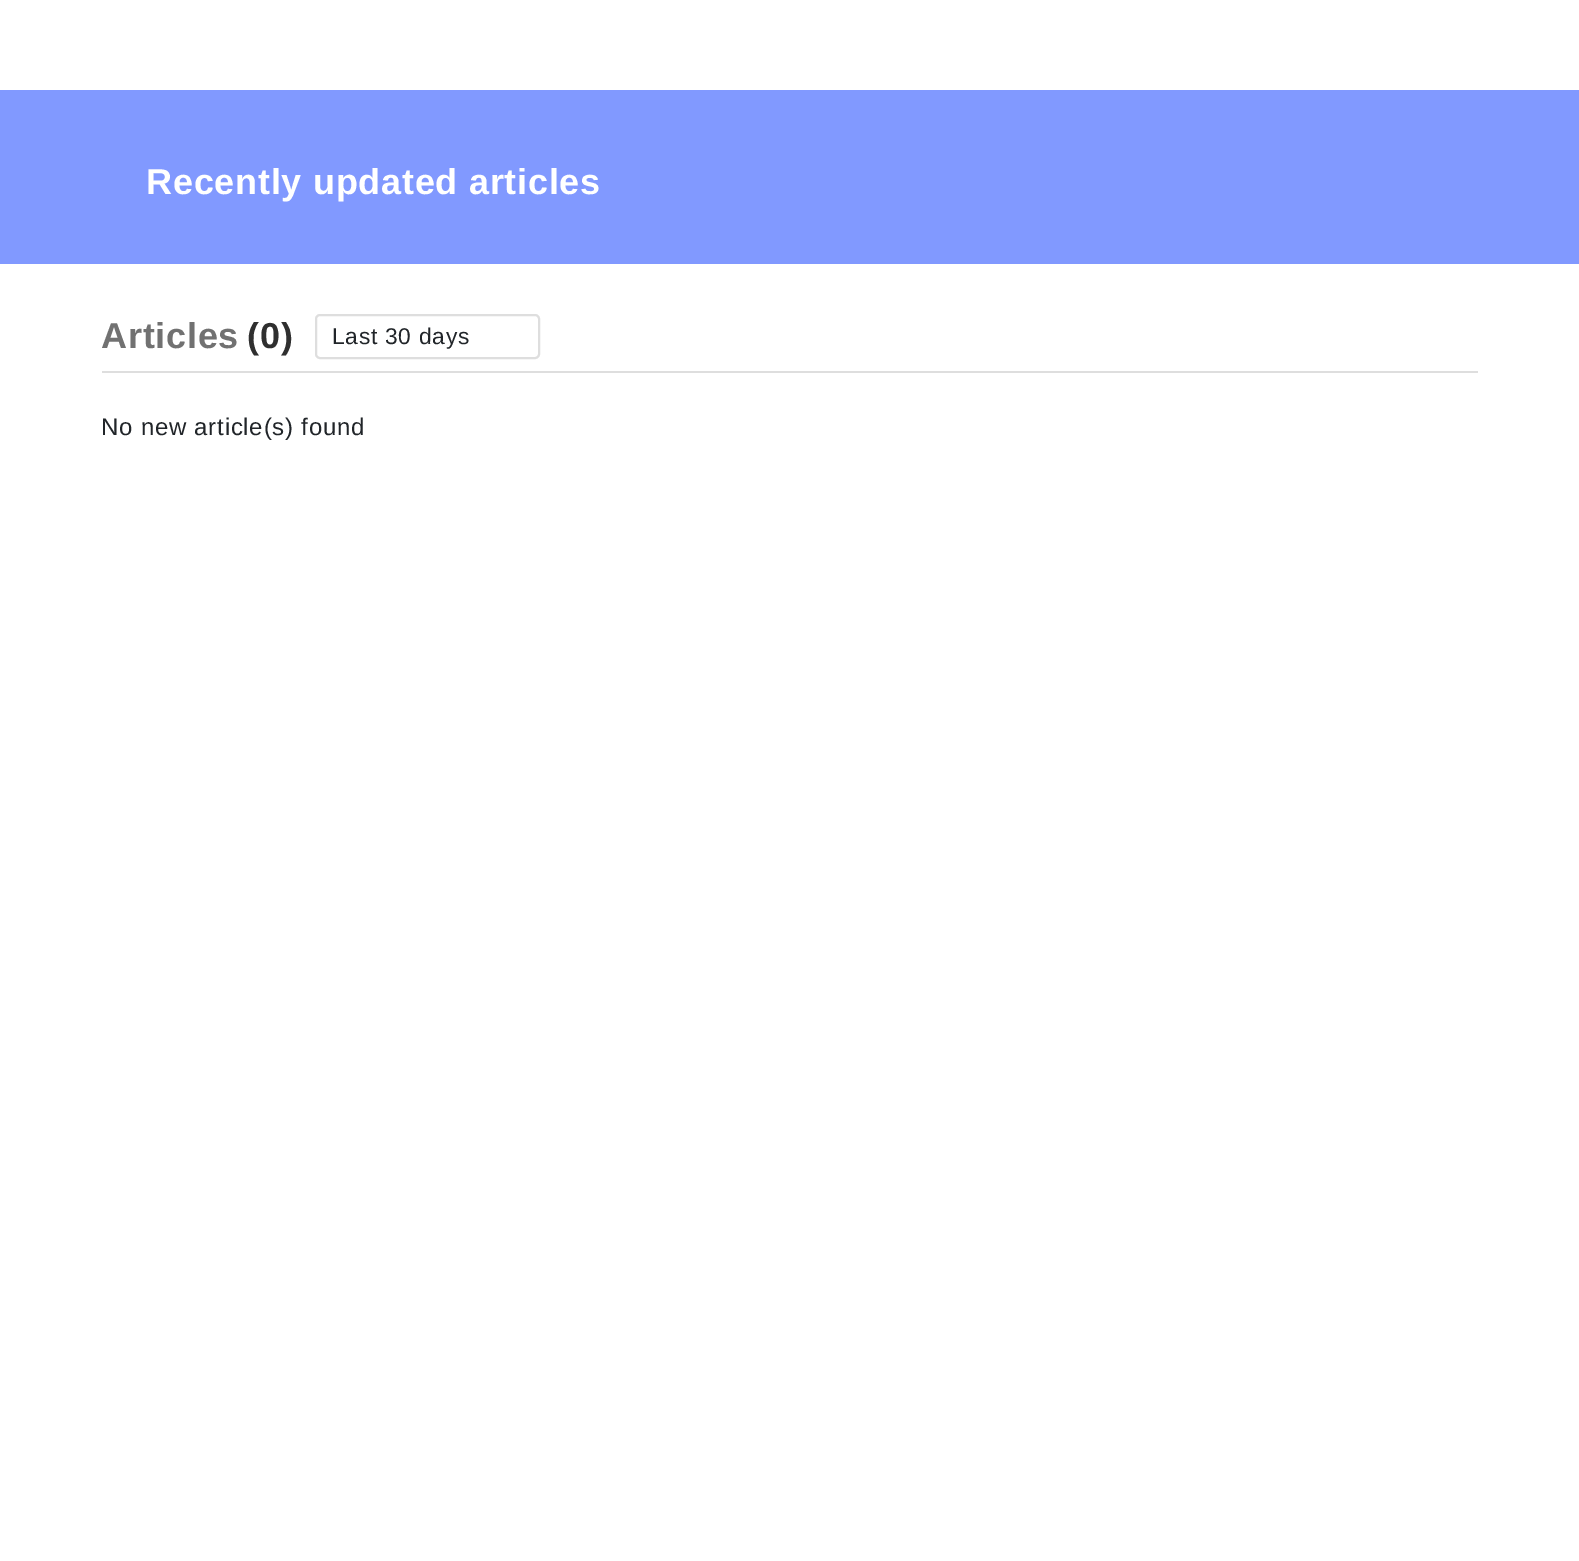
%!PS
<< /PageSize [1579 1561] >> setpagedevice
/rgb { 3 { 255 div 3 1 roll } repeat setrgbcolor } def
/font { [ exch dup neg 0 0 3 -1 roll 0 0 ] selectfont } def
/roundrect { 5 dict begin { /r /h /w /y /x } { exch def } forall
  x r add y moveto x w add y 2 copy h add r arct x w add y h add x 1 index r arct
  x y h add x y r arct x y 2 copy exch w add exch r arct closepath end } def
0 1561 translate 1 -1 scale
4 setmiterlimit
255 255 255 rgb
0 0 1579 1561 rectfill
129 153 255 rgb
0 90 1579 174 rectfill
222 222 222 rgb
102 371 1376 2 rectfill
2 setlinewidth
316 315 223 43 4 roundrect stroke
/LiberationSans-Bold 36 font
255 255 255 rgb
146 194 moveto 0.75 0 (Recently updated articles) ashow
113 113 113 rgb
101 348 moveto 0.75 0 (Articles) ashow
47 47 47 rgb
247 348 moveto 0.75 0 (\(0\)) ashow
/LiberationSans-Regular 22.75 font
33 37 41 rgb
332 344 moveto 0.75 0 (Last 30 days) ashow
/LiberationSans-Regular 24 font
101 435 moveto 0.75 0 (No new article\(s\) found) ashow
showpage
